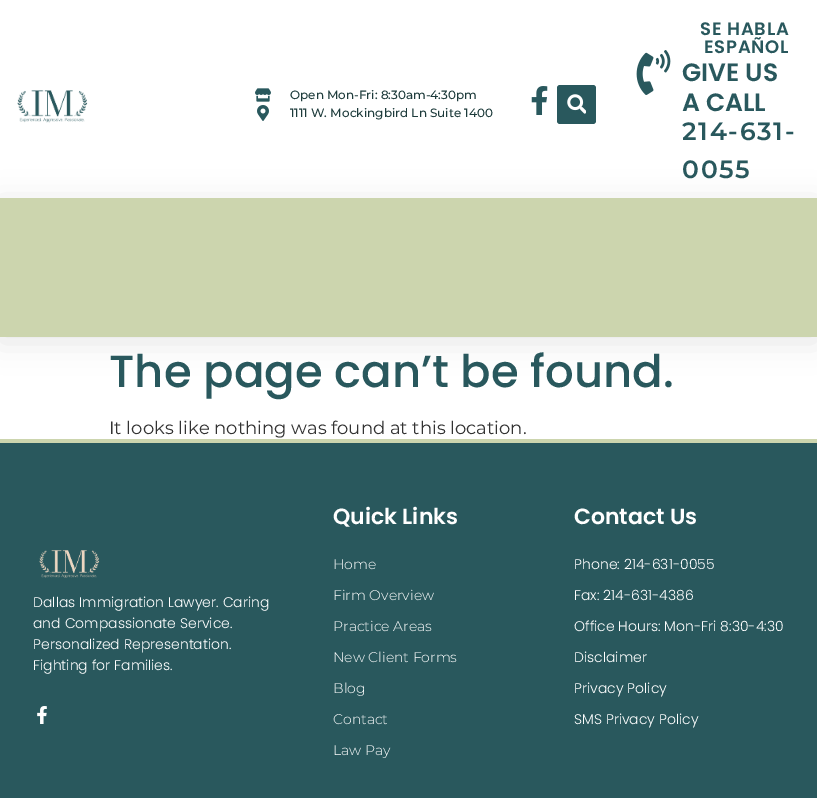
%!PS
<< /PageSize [817 798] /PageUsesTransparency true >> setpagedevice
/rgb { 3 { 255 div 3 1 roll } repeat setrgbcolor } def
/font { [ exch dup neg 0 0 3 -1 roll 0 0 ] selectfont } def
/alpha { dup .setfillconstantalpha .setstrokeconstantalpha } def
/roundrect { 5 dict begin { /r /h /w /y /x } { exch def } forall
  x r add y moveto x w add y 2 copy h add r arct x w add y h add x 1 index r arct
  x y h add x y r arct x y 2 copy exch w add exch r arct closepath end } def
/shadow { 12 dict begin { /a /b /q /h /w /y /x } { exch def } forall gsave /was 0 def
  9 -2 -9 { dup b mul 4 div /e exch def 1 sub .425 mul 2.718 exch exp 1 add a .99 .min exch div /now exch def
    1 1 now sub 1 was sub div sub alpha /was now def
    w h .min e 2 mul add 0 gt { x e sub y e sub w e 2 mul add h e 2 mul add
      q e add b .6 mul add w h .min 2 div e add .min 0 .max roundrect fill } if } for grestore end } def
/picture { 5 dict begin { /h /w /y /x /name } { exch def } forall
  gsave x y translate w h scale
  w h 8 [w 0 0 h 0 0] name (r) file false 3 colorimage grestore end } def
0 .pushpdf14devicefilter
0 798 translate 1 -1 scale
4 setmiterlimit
255 255 255 rgb
0 0 817 798 rectfill
(img/1.rgb) 17 90 71 33 picture
(img/2.rgb) 255 88 16 14 picture
(img/3.rgb) 257 105 12 16 picture
(img/4.rgb) 531 86 17 29 picture
41 88 93 rgb
557 85 39 39 3 roundrect fill
(img/5.rgb) 567 94 19 20 picture
(img/6.rgb) 636 50 35 45 picture
0 0 0 rgb
0 203 817 139 0 15 0.1 shadow
[
  [0 198 817 139 204 213 174]
  [0 443 817 355 41 88 93]
  [0 439 817 4 204 213 174]
] { aload pop rgb rectfill } forall
(img/7.rgb) 39 550 61 28 picture
(img/8.rgb) 37 706 10 18 picture
/Montserrat-Medium 12 font
29 59 59 rgb
290 99 moveto (Open Mon-Fri: 8:30am-4:30pm) show
290 117 moveto (1111 W. Mockingbird Ln Suite 1400) show
/Poppins-SemiBold 18 font
41 88 93 rgb
700 35 moveto 0.75 0 (SE HABLA) ashow
704 53 moveto 0.75 0 (ESPAÑOL) ashow
/Poppins-SemiBold 25 font
682 81 moveto (GIVE US) show
682 111 moveto (A CALL) show
/Montserrat-SemiBold 25 font
682 140 moveto 1.75 0 (214-631-) ashow
682 178 moveto 1.75 0 (0055) ashow
/Poppins-Medium 45 font
109 387 moveto (The page can’t be found.) show
/Montserrat-Regular 18 font
51 51 51 rgb
109 434 moveto (It looks like nothing was found at this location.) show
/Poppins-Light 14 font
255 255 255 rgb
[
  [(Dallas Immigration Lawyer. Caring) 33 607]
  [(and Compassionate Service.) 33 628]
  [(Personalized Representation.) 33 649]
  [(Fighting for Families.) 33 670]
] { aload pop moveto show } forall
/Poppins-SemiBold 22 font
333 524 moveto (Quick Links) show
/Montserrat-Light 14 font
[
  [(Home) 333 569]
  [(Firm Overview) 333 600]
  [(Practice Areas) 333 631]
  [(New Client Forms) 333 662]
  [(Blog) 333 693]
  [(Contact) 333 724]
  [(Law Pay) 333 755]
] { aload pop moveto show } forall
/Poppins-SemiBold 22 font
574 524 moveto (Contact Us) show
/Poppins-Light 14 font
[
  [(Phone: 214-631-0055) 574 569]
  [(Fax: 214-631-4386) 574 600]
  [(Office Hours: Mon-Fri 8:30-4:30) 574 631]
  [(Disclaimer) 574 662]
  [(Privacy Policy) 574 693]
  [(SMS Privacy Policy) 574 724]
] { aload pop moveto show } forall
.poppdf14devicefilter showpage
